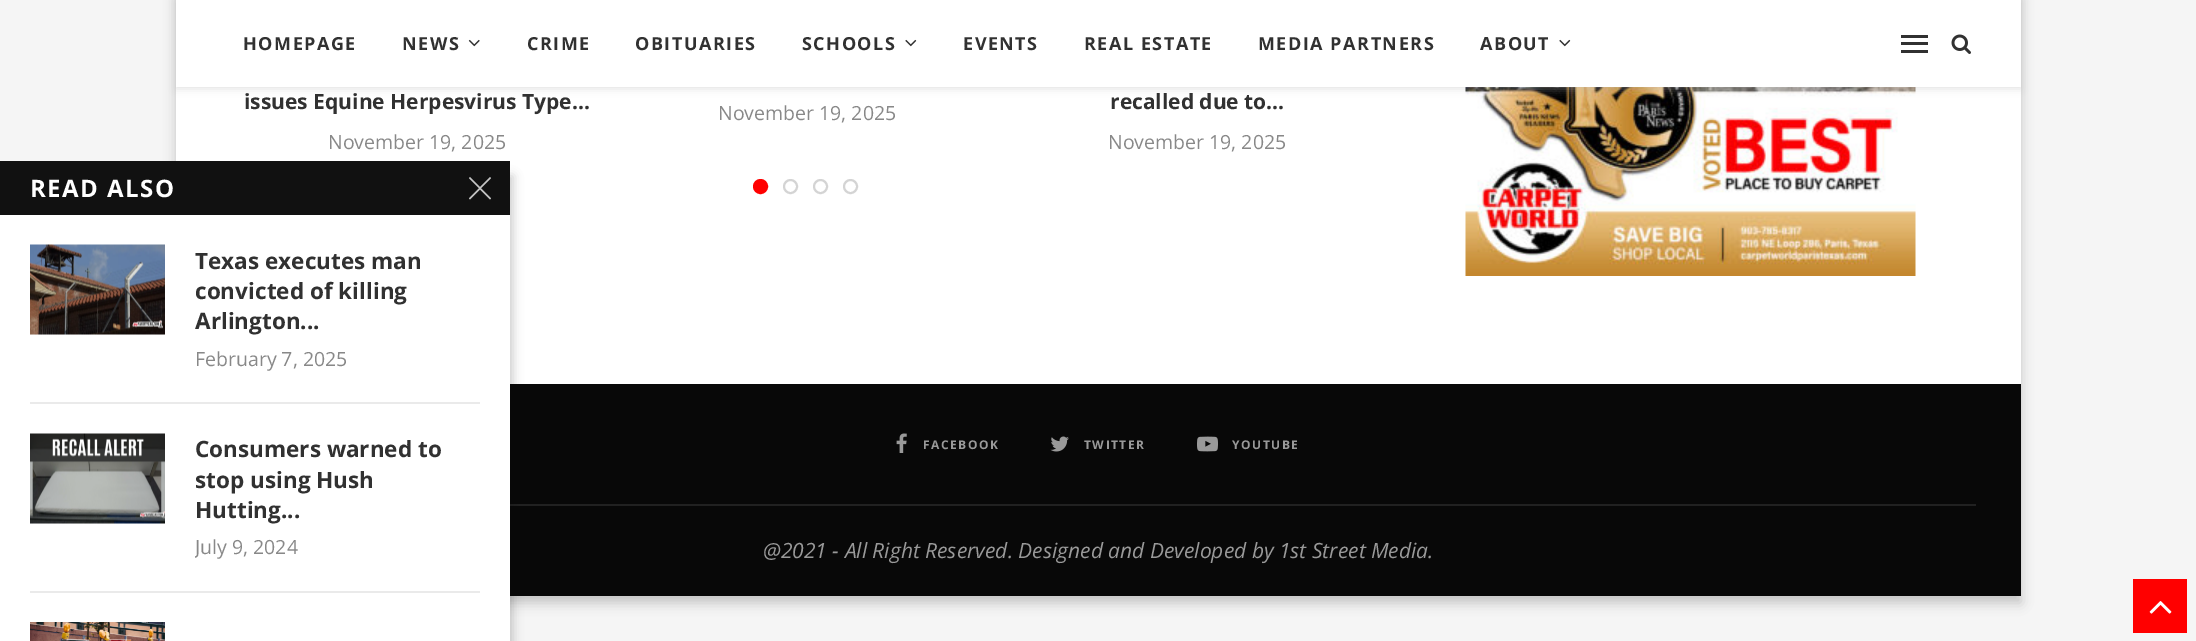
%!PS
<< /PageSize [2196 641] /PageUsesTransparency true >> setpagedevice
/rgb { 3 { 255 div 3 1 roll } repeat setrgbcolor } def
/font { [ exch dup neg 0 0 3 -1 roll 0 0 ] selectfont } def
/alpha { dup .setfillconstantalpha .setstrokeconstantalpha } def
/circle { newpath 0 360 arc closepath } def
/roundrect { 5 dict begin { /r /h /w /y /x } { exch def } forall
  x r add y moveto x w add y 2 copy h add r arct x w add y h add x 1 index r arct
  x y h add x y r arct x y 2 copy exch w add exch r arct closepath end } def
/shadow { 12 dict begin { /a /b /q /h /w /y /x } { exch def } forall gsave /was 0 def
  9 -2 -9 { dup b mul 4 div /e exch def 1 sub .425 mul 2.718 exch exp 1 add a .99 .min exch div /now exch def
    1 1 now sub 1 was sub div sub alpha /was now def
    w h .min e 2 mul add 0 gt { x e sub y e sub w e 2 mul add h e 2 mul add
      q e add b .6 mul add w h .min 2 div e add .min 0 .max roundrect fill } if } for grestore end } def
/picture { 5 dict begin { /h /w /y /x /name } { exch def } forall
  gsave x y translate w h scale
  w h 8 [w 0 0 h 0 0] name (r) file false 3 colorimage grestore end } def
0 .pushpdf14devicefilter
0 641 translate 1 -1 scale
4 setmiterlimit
245 245 245 rgb
0 0 2196 641 rectfill
0 0 0 rgb
176 -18 1845 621 0 6 0.2 shadow
[
  [176 87 1845 297 255 255 255]
  [510 384 1511 212 8 8 8]
  [510 504 1466 2 33 33 33]
] { aload pop rgb rectfill } forall
0 0 0 rgb
3 176 510 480 0 5 0.2 shadow
255 255 255 rgb
0 215 510 426 rectfill
17 17 17 rgb
0 161 510 54 rectfill
196 196 196 rgb
469 198.5 moveto 490 177 lineto 491 178 lineto 470 199.5 lineto closepath fill
470 177 moveto 491 198.5 lineto 490 199.5 lineto 469 178 lineto closepath fill
234 234 234 rgb
30 402 450 2 rectfill
245 245 245 rgb
30 334 135 1 rectfill
(img/1.rgb) 30 244 135 91 picture
234 234 234 rgb
30 591 450 2 rectfill
245 245 245 rgb
30 523 135 1 rectfill
(img/2.rgb) 30 433 135 91 picture
(img/3.rgb) 30 622 135 19 picture
(img/7.rgb) 1465 87 451 189 picture
190 190 190 rgb
176 2 1845 87 0 4 0.46 shadow
255 255 255 rgb
176 0 1845 87 rectfill
(img/4.rgb) 468 39 12 8 picture
(img/5.rgb) 905 39 12 8 picture
(img/5.rgb) 1559 39 12 8 picture
[
  [1901 35 27 3 49 49 49]
  [1901 50 27 3 49 49 49]
  [1901 42 27 3 49 49 49]
] { aload pop rgb rectfill } forall
(img/6.rgb) 1951 34 20 20 picture
255 0 0 rgb
760.5 186.5 6.5 circle gsave fill grestore
2 setlinewidth
stroke
212 212 212 rgb
790.5 186.5 6.5 circle stroke
820.5 186.5 6.5 circle stroke
850.5 186.5 6.5 circle stroke
(img/8.rgb) 896 433 11 20 picture
(img/9.rgb) 1050 436 19 16 picture
(img/10.rgb) 1197 436 21 16 picture
255 0 0 rgb
2133 579 54 54 rectfill
(img/11.rgb) 2149 601 23 13 picture
/OpenSans-Bold 24 font
255 255 255 rgb
30 197 moveto 1.5 0 (READ ALSO) ashow
/OpenSans-Bold 22.5 font
49 49 49 rgb
[
  [(Texas executes man) 195 269]
  [(convicted of killing) 195 299]
  [(Arlington...) 195 329]
] { aload pop moveto show } forall
/OpenSans-Regular 19.5 font
136 136 136 rgb
195 366 moveto (February 7, 2025) show
/OpenSans-Bold 22.5 font
49 49 49 rgb
[
  [(Consumers warned to) 195 457]
  [(stop using Hush) 195 488]
  [(Hutting...) 195 518]
] { aload pop moveto show } forall
gsave
195 434 285 127 rectclip
/OpenSans-Regular 19.5 font
136 136 136 rgb
195 554 moveto (July 9, 2024) show
grestore
/OpenSans-Bold 18 font
243 50 moveto 1.5 0 (HOMEPAGE) ashow
402 50 moveto 1.5 0 (NEWS) ashow
527 50 moveto 1.5 0 (CRIME) ashow
635 50 moveto 1.5 0 (OBITUARIES) ashow
802 50 moveto 1.5 0 (SCHOOLS) ashow
963 50 moveto 1.5 0 (EVENTS) ashow
1084 50 moveto 1.5 0 (REAL ESTATE) ashow
1258 50 moveto 1.5 0 (MEDIA PARTNERS) ashow
1480 50 moveto 1.5 0 (ABOUT) ashow
/OpenSans-Bold 21 font
244 109 moveto (issues Equine Herpesvirus Type...) show
/OpenSans-Regular 19.5 font
136 136 136 rgb
328 149 moveto (November 19, 2025) show
718 120 moveto (November 19, 2025) show
/OpenSans-Bold 21 font
49 49 49 rgb
1110 109 moveto (recalled due to...) show
/OpenSans-Regular 19.5 font
136 136 136 rgb
1108 149 moveto (November 19, 2025) show
/OpenSans-Bold 12 font
153 153 153 rgb
923 449 moveto 1.5 0 (FACEBOOK) ashow
1084 449 moveto 1.5 0 (TWITTER) ashow
1232 449 moveto 1.5 0 (YOUTUBE) ashow
/OpenSans-Italic 21 font
763 558 moveto (@2021 - All Right Reserved. Designed and Developed by 1st Street Media.) show
.poppdf14devicefilter showpage
